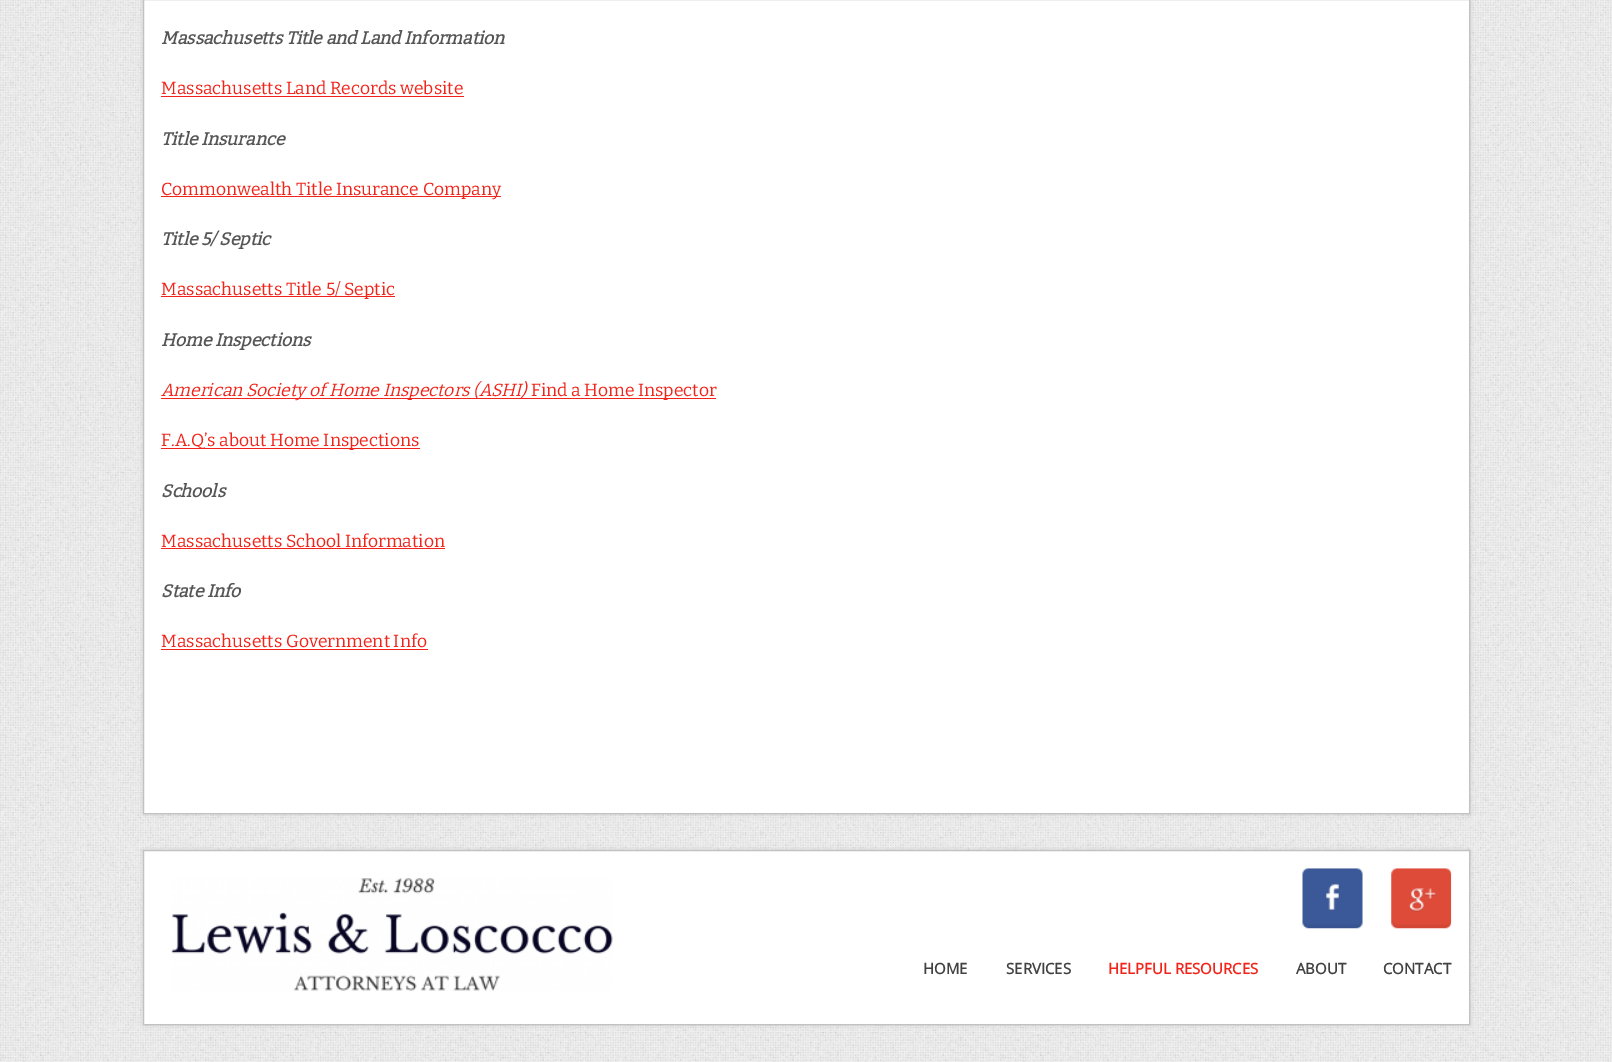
%!PS
<< /PageSize [1612 1062] /PageUsesTransparency true >> setpagedevice
/rgb { 3 { 255 div 3 1 roll } repeat setrgbcolor } def
/font { [ exch dup neg 0 0 3 -1 roll 0 0 ] selectfont } def
/alpha { dup .setfillconstantalpha .setstrokeconstantalpha } def
/roundrect { 5 dict begin { /r /h /w /y /x } { exch def } forall
  x r add y moveto x w add y 2 copy h add r arct x w add y h add x 1 index r arct
  x y h add x y r arct x y 2 copy exch w add exch r arct closepath end } def
/shadow { 12 dict begin { /a /b /q /h /w /y /x } { exch def } forall gsave /was 0 def
  9 -2 -9 { dup b mul 4 div /e exch def 1 sub .425 mul 2.718 exch exp 1 add a .99 .min exch div /now exch def
    1 1 now sub 1 was sub div sub alpha /was now def
    w h .min e 2 mul add 0 gt { x e sub y e sub w e 2 mul add h e 2 mul add
      q e add b .6 mul add w h .min 2 div e add .min 0 .max roundrect fill } if } for grestore end } def
/picture { 5 dict begin { /h /w /y /x /name } { exch def } forall
  gsave x y translate w h scale
  w h 8 [w 0 0 h 0 0] name (r) file false 3 colorimage grestore end } def
0 .pushpdf14devicefilter
0 1062 translate 1 -1 scale
4 setmiterlimit
255 255 255 rgb
0 0 1612 1062 rectfill
(img/1.rgb) 0 0 1612 1062 picture
0 0 0 rgb
143 -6 1327 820 0 2 0.14 shadow
255 255 255 rgb
143.5 -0.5 moveto 1469.5 -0.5 lineto 1469.5 813.5 lineto 143.5 813.5 lineto closepath gsave fill grestore
194 194 194 rgb
stroke
[
  [161 96 303 1 240 36 26]
  [161 196 340 1 240 36 26]
  [161 296 234 1 240 36 26]
  [161 398 367 1 240 36 26]
  [528 398 188 1 240 36 26]
  [161 448 259 1 240 36 26]
  [161 548 284 1 240 36 26]
  [161 649 267 1 240 36 26]
] { aload pop rgb rectfill } forall
0 0 0 rgb
143 850 1327 175 0 2 0.14 shadow
255 255 255 rgb
143.5 850.5 moveto 1469.5 850.5 lineto 1469.5 1024.5 lineto 143.5 1024.5 lineto closepath gsave fill grestore
194 194 194 rgb
stroke
(img/2.rgb) 171 878 442 113 picture
(img/3.rgb) 1302 868 61 61 picture
(img/4.rgb) 1391 868 61 61 picture
/Bitter-BoldItalic 17.5 font
85 85 85 rgb
161 44 moveto (Massachusetts Title and Land Information) show
/Bitter-Thin 17.5 font
240 36 26 rgb
161 94 moveto (Massachusetts Land Records website) show
/Bitter-BoldItalic 17.5 font
85 85 85 rgb
161 145 moveto (Title Insurance) show
/Bitter-Thin 17.5 font
240 36 26 rgb
161 195 moveto (Commonwealth Title Insurance Company) show
/Bitter-BoldItalic 17.5 font
85 85 85 rgb
161 245 moveto (Title 5/ Septic) show
/Bitter-Thin 17.5 font
240 36 26 rgb
161 295 moveto (Massachusetts Title 5/ Septic) show
/Bitter-BoldItalic 17.5 font
85 85 85 rgb
161 346 moveto (Home Inspections) show
/Bitter-ThinItalic 17.5 font
240 36 26 rgb
161 396 moveto (American Society of Home Inspectors \(ASHI\)) show
/Bitter-Thin 17.5 font
531 396 moveto (Find a Home Inspector) show
161 446 moveto (F.A.Q’s about Home Inspections) show
/Bitter-BoldItalic 17.5 font
85 85 85 rgb
161 497 moveto (Schools) show
/Bitter-Thin 17.5 font
240 36 26 rgb
161 547 moveto (Massachusetts School Information) show
/Bitter-BoldItalic 17.5 font
85 85 85 rgb
161 597 moveto (State Info) show
/Bitter-Thin 17.5 font
240 36 26 rgb
161 647 moveto (Massachusetts Government Info) show
/OpenSans-Bold 15 font
65 65 65 rgb
923 974 moveto (HOME) show
1006 974 moveto (SERVICES) show
240 36 26 rgb
1108 974 moveto (HELPFUL RESOURCES) show
65 65 65 rgb
1296 974 moveto (ABOUT) show
1383 974 moveto (CONTACT) show
.poppdf14devicefilter showpage
